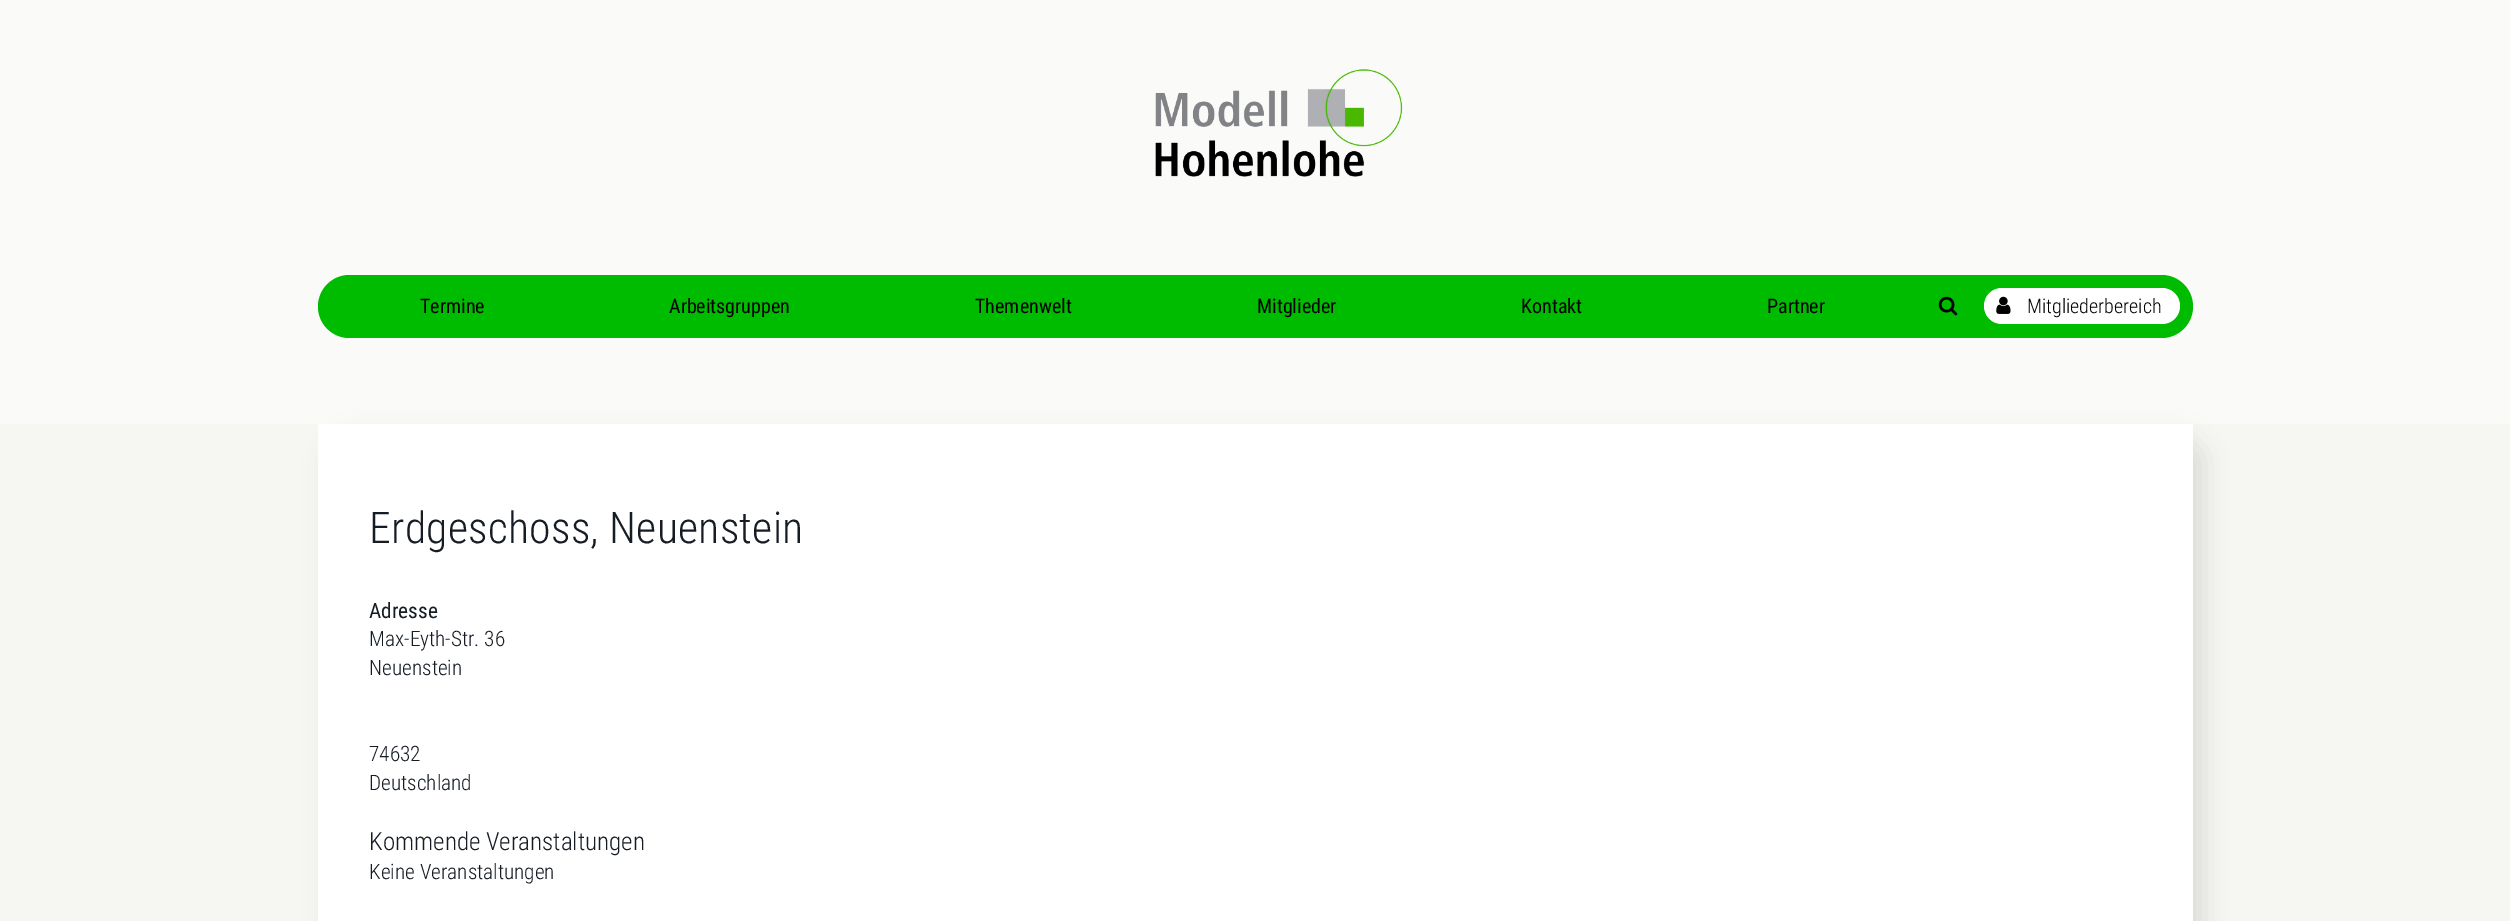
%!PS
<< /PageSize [2510 921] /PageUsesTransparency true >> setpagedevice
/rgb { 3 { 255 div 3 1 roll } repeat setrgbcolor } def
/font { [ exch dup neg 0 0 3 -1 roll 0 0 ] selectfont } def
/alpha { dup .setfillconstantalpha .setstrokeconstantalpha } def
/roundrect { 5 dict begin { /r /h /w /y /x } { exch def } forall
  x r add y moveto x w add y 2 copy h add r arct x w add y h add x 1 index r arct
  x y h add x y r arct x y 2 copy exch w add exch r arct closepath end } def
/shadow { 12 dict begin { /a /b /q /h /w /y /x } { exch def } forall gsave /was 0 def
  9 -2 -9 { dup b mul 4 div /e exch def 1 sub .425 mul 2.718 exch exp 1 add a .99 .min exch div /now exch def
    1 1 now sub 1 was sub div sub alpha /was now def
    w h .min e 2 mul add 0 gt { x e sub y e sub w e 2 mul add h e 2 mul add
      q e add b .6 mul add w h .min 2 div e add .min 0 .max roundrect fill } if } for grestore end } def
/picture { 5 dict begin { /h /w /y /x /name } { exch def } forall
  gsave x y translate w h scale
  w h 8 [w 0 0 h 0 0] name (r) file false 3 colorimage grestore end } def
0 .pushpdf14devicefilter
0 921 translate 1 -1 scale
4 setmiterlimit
250 250 249 rgb
0 0 2510 921 rectfill
(img/1.rgb) 1155 69 248 108 picture
0 188 0 rgb
318 275 1875 63 31.5 roundrect fill
(img/2.rgb) 1938 296 20 20 picture
255 255 255 rgb
2021 288 moveto 2162 288 lineto 2172 288 2180 296 2180 306 curveto 2180 316 2172 324 2162 324 curveto 2021 324 lineto closepath fill
2002 288 moveto 2023 288 lineto 2023 324 lineto 2002 324 lineto 1992 324 1984 316 1984 306 curveto 1984 296 1992 288 2002 288 curveto closepath fill
(img/3.rgb) 1996 296 15 18 picture
246 246 243 rgb
0 424 2510 497 rectfill
0 0 0 rgb
330 436 1875 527 25 12.5 0.1 shadow
255 255 255 rgb
318 424 1875 497 rectfill
/RobotoCondensed-Regular 20 font
0 0 0 rgb
[
  [(Termine) 420 313]
  [(Arbeitsgruppen) 669 313]
  [(Themenwelt) 975 313]
  [(Mitglieder) 1257 313]
  [(Kontakt) 1521 313]
  [(Partner) 1767 313]
] { aload pop moveto show } forall
/RobotoCondensed-Light 20 font
2027 313 moveto (Mitgliederbereich) show
/RobotoCondensed-Light 43.75 font
21 28 35 rgb
369 543 moveto 0.25 0 (Erdgeschoss, Neuenstein) ashow
/RobotoCondensed-Regular 21.25 font
369 618 moveto (Adresse) show
/RobotoCondensed-Light 21.25 font
[
  [(Max-Eyth-Str. 36) 369 646]
  [(Neuenstein) 369 675]
  [(74632) 369 761]
  [(Deutschland) 369 790]
] { aload pop moveto show } forall
/RobotoCondensed-Light 25 font
369 850 moveto (Kommende Veranstaltungen) show
/RobotoCondensed-Light 21.25 font
369 879 moveto (Keine Veranstaltungen) show
.poppdf14devicefilter showpage
